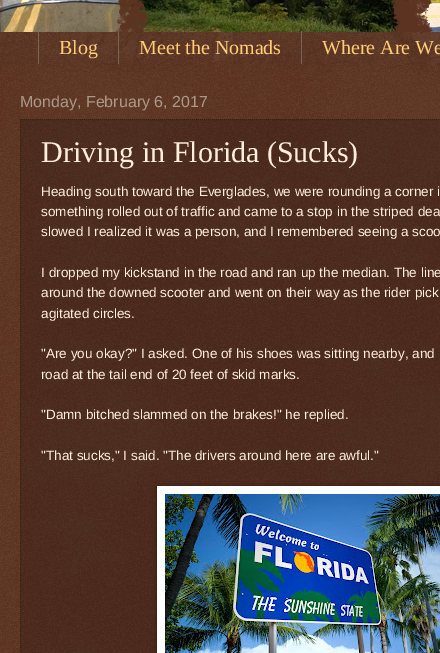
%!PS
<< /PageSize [440 653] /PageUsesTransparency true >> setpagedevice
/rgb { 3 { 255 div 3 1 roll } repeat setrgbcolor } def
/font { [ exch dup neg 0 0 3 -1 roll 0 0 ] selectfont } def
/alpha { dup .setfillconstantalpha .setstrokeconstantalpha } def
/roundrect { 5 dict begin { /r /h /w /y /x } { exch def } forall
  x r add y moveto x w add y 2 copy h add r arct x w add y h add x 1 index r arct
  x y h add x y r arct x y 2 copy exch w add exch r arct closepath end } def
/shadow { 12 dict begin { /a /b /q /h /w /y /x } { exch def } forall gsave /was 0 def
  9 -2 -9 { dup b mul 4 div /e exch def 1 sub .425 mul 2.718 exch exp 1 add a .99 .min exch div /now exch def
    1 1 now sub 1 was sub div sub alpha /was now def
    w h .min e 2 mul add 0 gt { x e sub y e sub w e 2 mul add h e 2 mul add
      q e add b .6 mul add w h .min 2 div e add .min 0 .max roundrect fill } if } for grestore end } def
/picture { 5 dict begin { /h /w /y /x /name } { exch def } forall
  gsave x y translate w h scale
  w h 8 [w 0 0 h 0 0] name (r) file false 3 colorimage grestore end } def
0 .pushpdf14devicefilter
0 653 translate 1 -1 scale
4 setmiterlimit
68 21 0 rgb
0 0 440 653 rectfill
(img/1.rgb) 0 0 440 653 picture
(img/2.rgb) 0 0 440 72 picture
(img/3.rgb) 0 0 440 32 picture
[
  [118 31 1 33 119 102 85]
  [38 31 1 33 119 102 85]
  [301 31 1 33 119 102 85]
] { aload pop rgb rectfill } forall
0.2 alpha
[
  [20 119 420 534 0 0 0]
] { aload pop rgb rectfill } forall
1 alpha
51 34 17 rgb
[1 1] 0 setdash
20 119.5 moveto 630 119.5 lineto stroke
20.5 119 moveto 20.5 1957 lineto stroke
0 0 0 rgb
158 487 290 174 0 2.5 0.5 shadow
255 255 255 rgb
157 486 283 167 rectfill
(img/4.rgb) 165 494 275 159 picture
/LiberationSerif-Regular 20 font
255 204 119 rgb
[
  [(Blog) 59 54]
  [(Meet the Nomads) 139 54]
  [(Where Are We) 322 54]
] { aload pop moveto show } forall
/LiberationSans-Regular 16 font
170 153 136 rgb
20 107 moveto (Monday, February 6, 2017) show
/LiberationSerif-Regular 30 font
255 238 221 rgb
41 162 moveto (Driving in Florida \(Sucks\)) show
/LiberationSans-Regular 13.5 font
[
  [(Heading south toward the Everglades, we were rounding a corner i) 41 196]
  [(something rolled out of traffic and came to a stop in the striped dea) 41 216]
  [(slowed I realized it was a person, and I remembered seeing a scoo) 41 236]
  [(I dropped my kickstand in the road and ran up the median. The line) 41 277]
  [(around the downed scooter and went on their way as the rider pick) 41 297]
  [(agitated circles.) 41 318]
  [("Are you okay?" I asked. One of his shoes was sitting nearby, and) 41 358]
  [(road at the tail end of 20 feet of skid marks.) 41 379]
  [("Damn bitched slammed on the brakes!" he replied.) 41 419]
  [("That sucks," I said. "The drivers around here are awful.") 41 460]
] { aload pop moveto show } forall
.poppdf14devicefilter showpage
